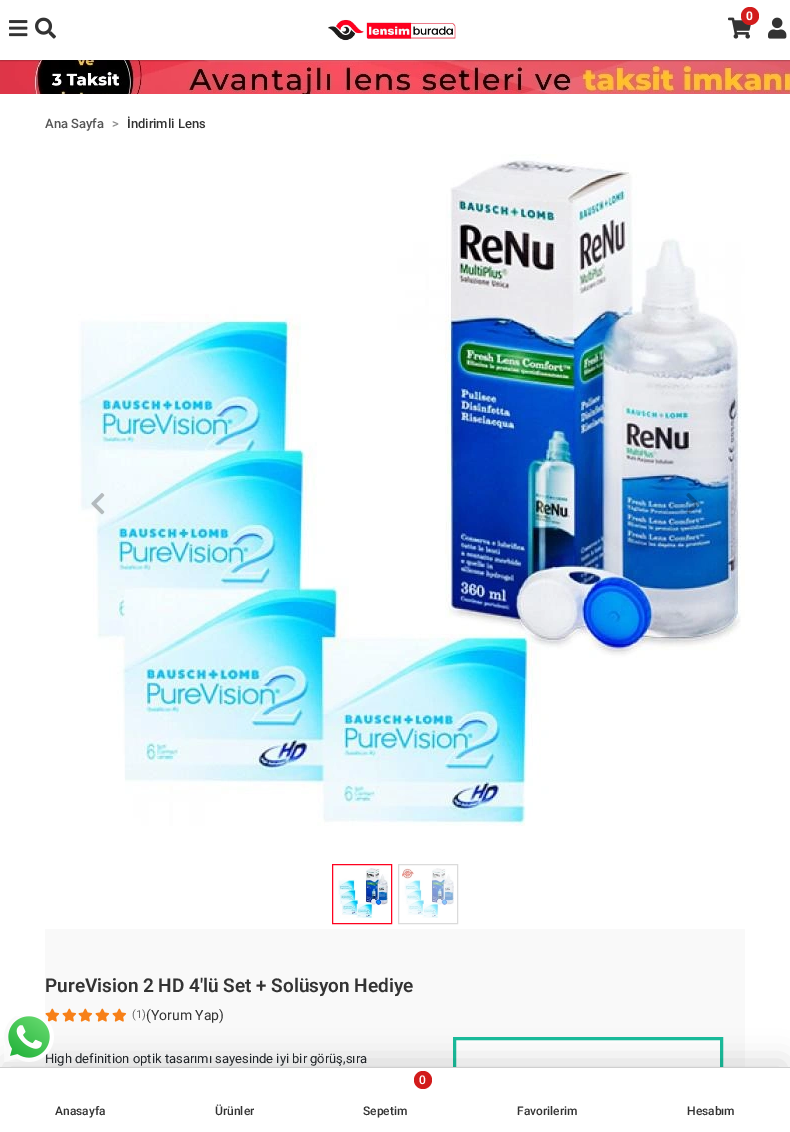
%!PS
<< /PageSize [790 1132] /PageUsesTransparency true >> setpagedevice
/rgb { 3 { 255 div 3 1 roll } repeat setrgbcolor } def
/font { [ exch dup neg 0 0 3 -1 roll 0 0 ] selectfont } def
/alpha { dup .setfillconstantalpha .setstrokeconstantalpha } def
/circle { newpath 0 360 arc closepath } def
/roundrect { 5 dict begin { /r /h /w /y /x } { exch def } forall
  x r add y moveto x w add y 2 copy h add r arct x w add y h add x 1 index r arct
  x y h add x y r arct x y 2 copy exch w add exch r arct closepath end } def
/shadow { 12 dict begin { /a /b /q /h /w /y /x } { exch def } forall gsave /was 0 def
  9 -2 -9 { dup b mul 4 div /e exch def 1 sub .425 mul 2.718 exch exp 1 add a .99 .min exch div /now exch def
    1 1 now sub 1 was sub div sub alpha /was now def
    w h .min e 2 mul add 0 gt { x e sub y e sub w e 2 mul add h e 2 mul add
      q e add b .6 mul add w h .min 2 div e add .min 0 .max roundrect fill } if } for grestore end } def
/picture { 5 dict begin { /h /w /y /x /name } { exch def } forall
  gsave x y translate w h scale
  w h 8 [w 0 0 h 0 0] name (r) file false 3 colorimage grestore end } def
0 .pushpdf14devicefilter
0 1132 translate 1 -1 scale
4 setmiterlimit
255 255 255 rgb
0 0 790 1132 rectfill
(img/6.rgb) 0 60 790 34 picture
gsave
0 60 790 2 rectclip
0 0 0 rgb
0 1 790 60 0 0.5 0.2 shadow
grestore
(img/1.rgb) 728 17 23 22 picture
210 28 28 rgb
750 16 9 circle fill
(img/2.rgb) 768 17 19 22 picture
(img/3.rgb) 9 20 19 17 picture
(img/4.rgb) 35 17 21 22 picture
(img/5.rgb) 328 19 128 22 picture
249 249 249 rgb
45 929 700 138 rectfill
(img/8.rgb) 78 154 667 672 picture
(img/9.rgb) 91 493 14 22 picture
(img/10.rgb) 686 493 14 22 picture
254 2 31 rgb
332.5 864.5 59 59 rectstroke
(img/11.rgb) 338 868 50 51 picture
219 219 219 rgb
398.5 864.5 59 59 rectstroke
(img/12.rgb) 402 868 52 50 picture
(img/13.rgb) 45 1008 15 14 picture
(img/13.rgb) 62 1008 15 14 picture
(img/13.rgb) 78 1008 15 14 picture
(img/13.rgb) 95 1008 15 14 picture
(img/13.rgb) 112 1008 15 14 picture
255 255 255 rgb
456 1040 264 27 rectfill
26 188 156 rgb
3 setlinewidth
454.5 1038.5 267 56 rectstroke
0 0 0 rgb
5 1062 780 55 0 15 0.15 shadow
255 255 255 rgb
0 1068 790 64 rectfill
207 207 207 rgb
0 1067 790 1 rectfill
210 28 28 rgb
423 1080 9 circle fill
/Roboto-Bold 12 font
255 255 255 rgb
746 20 moveto (0) show
/Roboto-Medium 13 font
85 85 85 rgb
45 128 moveto (Ana Sayfa) show
142 142 142 rgb
112 128 moveto (>) show
51 51 51 rgb
127 128 moveto (İndirimli Lens) show
/Roboto-SemiBold 19 font
45 992 moveto (PureVision 2 HD 4'lü Set + Solüsyon Hediye) show
/Roboto-Regular 11 font
102 102 102 rgb
132 1018 moveto (\(1\)) show
/Roboto-Regular 14 font
51 51 51 rgb
146 1020 moveto (\(Yorum Yap\)) show
/Roboto-Regular 13 font
33 37 41 rgb
45 1063 moveto (High definition optik tasarımı sayesinde iyi bir görüş,sıra) show
(img/7.rgb) 4 1016 50 46 picture
/Roboto-Medium 12 font
51 51 51 rgb
55 1115 moveto (Anasayfa) show
215 1115 moveto (Ürünler) show
255 255 255 rgb
419 1084 moveto (0) show
51 51 51 rgb
[
  [(Sepetim) 363 1115]
  [(Favorilerim) 517 1115]
  [(Hesabım) 687 1115]
] { aload pop moveto show } forall
.poppdf14devicefilter showpage
